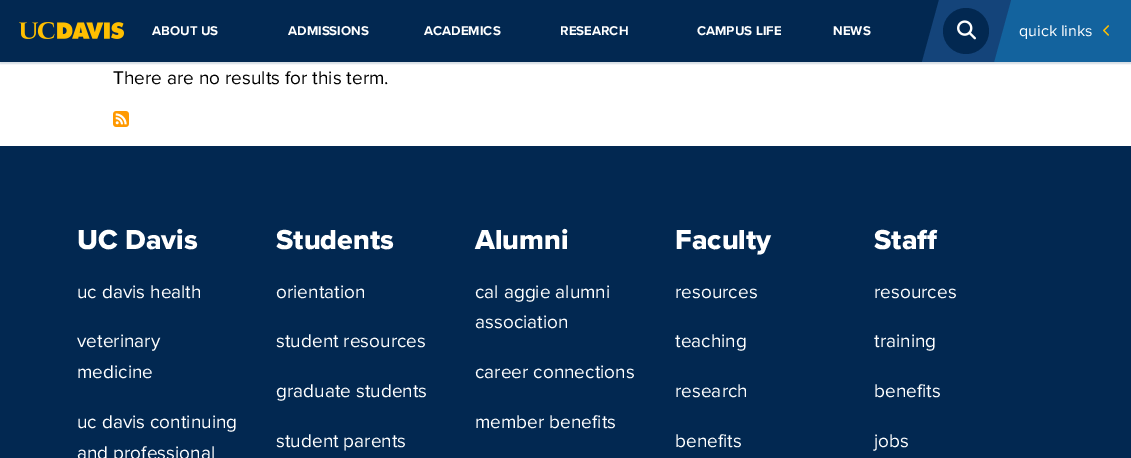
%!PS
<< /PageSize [1131 458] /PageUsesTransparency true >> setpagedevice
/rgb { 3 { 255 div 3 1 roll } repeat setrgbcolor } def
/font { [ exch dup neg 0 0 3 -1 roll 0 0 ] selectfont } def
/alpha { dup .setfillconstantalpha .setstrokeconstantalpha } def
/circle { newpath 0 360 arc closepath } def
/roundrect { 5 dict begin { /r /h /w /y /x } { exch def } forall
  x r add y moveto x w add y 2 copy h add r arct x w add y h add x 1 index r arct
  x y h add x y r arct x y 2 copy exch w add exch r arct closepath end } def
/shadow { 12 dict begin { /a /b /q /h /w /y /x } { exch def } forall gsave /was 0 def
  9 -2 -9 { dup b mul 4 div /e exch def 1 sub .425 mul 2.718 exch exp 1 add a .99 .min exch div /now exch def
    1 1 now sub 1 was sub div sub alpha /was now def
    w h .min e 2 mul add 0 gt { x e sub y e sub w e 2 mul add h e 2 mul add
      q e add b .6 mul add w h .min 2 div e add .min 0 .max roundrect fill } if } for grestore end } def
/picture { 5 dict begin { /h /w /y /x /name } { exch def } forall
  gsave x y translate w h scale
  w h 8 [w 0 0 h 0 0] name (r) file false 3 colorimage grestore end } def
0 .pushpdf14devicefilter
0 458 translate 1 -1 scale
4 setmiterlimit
255 255 255 rgb
0 0 1131 458 rectfill
2 40 81 rgb
0 2 1131 62 0 0.5 0.15 shadow
0 0 939 62 rectfill
(img/1.rgb) 19 22 105 17 picture
19 99 158 rgb
1008 0 moveto 991 62 lineto 1009 62 lineto 1009 0 lineto closepath fill
20 68 122 rgb
940 0 52 62 rectfill
939 0 moveto 922 62 lineto 940 62 lineto 940 0 lineto closepath fill
2 40 81 rgb
966 31 23 circle fill
(img/2.rgb) 957 20 19 20 picture
19 99 158 rgb
1009 0 122 62 rectfill
20 68 122 rgb
992 0 moveto 1011 0 lineto 994 62 lineto 992 62 lineto closepath fill
(img/3.rgb) 1103 25 6 11 picture
(img/4.rgb) 113 111 16 16 picture
2 40 81 rgb
0 146 1131 312 rectfill
/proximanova-Regular 16 font
255 255 255 rgb
1019 36 moveto (quick links) show
/proximanova-Bold 13.25 font
[
  [(ABOUT US) 152 35]
  [(ADMISSIONS) 288 35]
  [(ACADEMICS) 424 35]
  [(RESEARCH) 560 35]
  [(CAMPUS LIFE) 697 35]
  [(NEWS) 833 35]
] { aload pop moveto show } forall
/proximanova-Regular 19 font
0 0 0 rgb
113 84 moveto (There are no results for this term.) show
/ProximaNova-ExtraBold 28.5 font
255 255 255 rgb
77 249 moveto (UC Davis) show
/proximanova-Regular 19 font
[
  [(uc davis health) 77 298]
  [(veterinary) 77 347]
  [(medicine) 77 378]
  [(uc davis continuing) 77 428]
  [(and professional) 77 459]
] { aload pop moveto show } forall
/ProximaNova-ExtraBold 28.5 font
276 249 moveto (Students) show
/proximanova-Regular 19 font
[
  [(orientation) 276 298]
  [(student resources) 276 347]
  [(graduate students) 276 397]
  [(student parents) 276 447]
] { aload pop moveto show } forall
/ProximaNova-ExtraBold 28.5 font
475 249 moveto (Alumni) show
/proximanova-Regular 19 font
[
  [(cal aggie alumni) 475 298]
  [(association) 475 328]
  [(career connections) 475 378]
  [(member benefits) 475 428]
] { aload pop moveto show } forall
/ProximaNova-ExtraBold 28.5 font
675 249 moveto (Faculty) show
/proximanova-Regular 19 font
[
  [(resources) 675 298]
  [(teaching) 675 347]
  [(research) 675 397]
  [(benefits) 675 447]
] { aload pop moveto show } forall
/ProximaNova-ExtraBold 28.5 font
874 249 moveto (Staff) show
/proximanova-Regular 19 font
[
  [(resources) 874 298]
  [(training) 874 347]
  [(benefits) 874 397]
  [(jobs) 874 447]
] { aload pop moveto show } forall
.poppdf14devicefilter showpage
